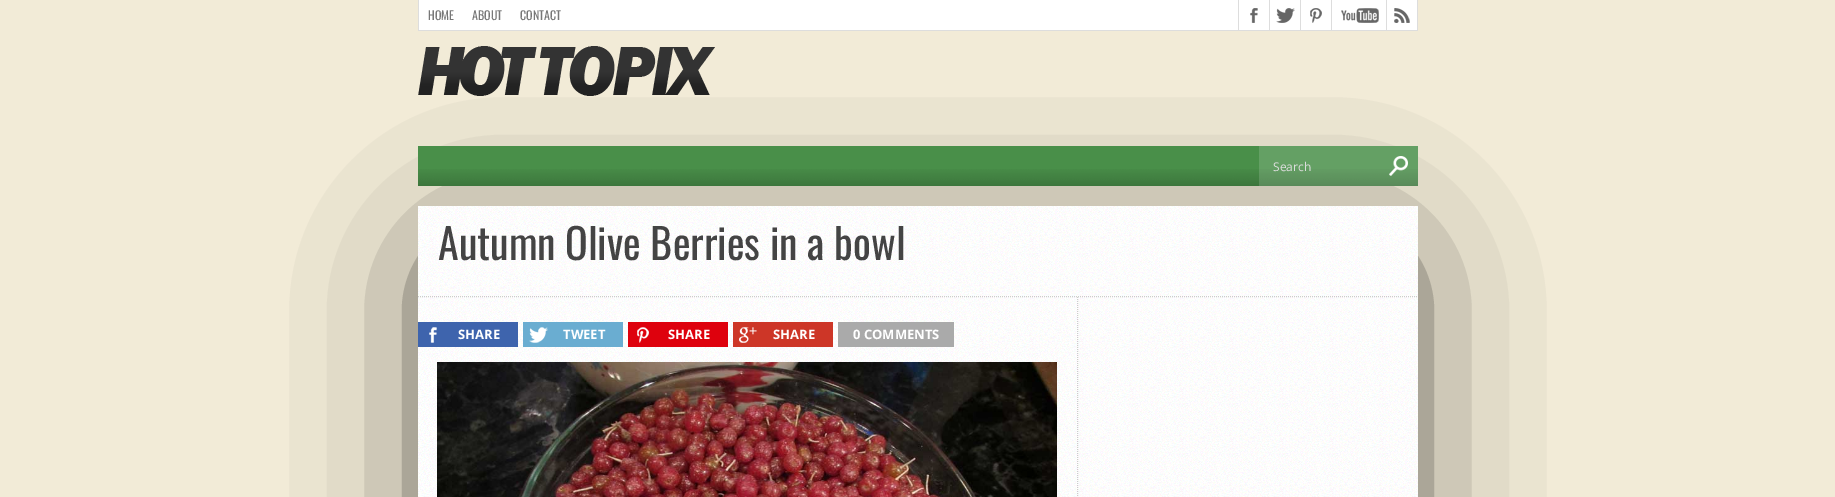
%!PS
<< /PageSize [1835 497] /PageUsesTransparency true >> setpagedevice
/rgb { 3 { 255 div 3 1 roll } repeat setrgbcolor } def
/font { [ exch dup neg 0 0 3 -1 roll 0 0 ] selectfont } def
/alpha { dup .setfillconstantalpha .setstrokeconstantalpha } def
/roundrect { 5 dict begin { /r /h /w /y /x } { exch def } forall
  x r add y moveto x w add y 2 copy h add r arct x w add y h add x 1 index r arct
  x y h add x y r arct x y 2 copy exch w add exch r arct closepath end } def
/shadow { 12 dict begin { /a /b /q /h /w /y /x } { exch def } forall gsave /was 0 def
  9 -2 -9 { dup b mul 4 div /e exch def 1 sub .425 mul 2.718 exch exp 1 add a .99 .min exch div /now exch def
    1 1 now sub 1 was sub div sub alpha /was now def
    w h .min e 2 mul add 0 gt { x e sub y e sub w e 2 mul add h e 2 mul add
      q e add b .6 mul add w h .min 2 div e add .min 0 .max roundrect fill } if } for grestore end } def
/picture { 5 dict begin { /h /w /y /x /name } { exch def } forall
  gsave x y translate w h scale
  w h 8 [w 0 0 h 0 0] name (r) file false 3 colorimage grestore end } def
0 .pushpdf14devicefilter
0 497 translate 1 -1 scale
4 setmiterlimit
242 235 215 rgb
0 0 1835 497 rectfill
[
  [419 0 998 30 255 255 255]
  [1417 0 1 31 221 221 221]
  [418 30 1000 1 221 221 221]
  [418 0 1 31 221 221 221]
  [1238 0 1 30 221 221 221]
] { aload pop rgb rectfill } forall
(img/1.rgb) 1250 8 8 15 picture
1269 0 1 30 rectfill
(img/2.rgb) 1276 8 19 15 picture
1300 0 1 30 rectfill
(img/3.rgb) 1310 8 12 15 picture
1331 0 1 30 rectfill
(img/4.rgb) 1341 8 38 15 picture
1386 0 1 30 rectfill
(img/5.rgb) 1394 8 16 15 picture
(img/6.rgb) 418 46 297 50 picture
0 0 0 rgb
458 266 920 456 0 75 1 shadow
73 143 73 rgb
418 146 1000 40 rectfill
(img/7.rgb) 418 169 1000 17 picture
0.15 alpha
255 255 255 rgb
1259 146 159 40 rectfill
1 alpha
(img/8.rgb) 1389 156 19 20 picture
(img/9.rgb) 418 206 1000 291 picture
204 204 204 rgb
[1 1] 0 setdash
418 296.5 moveto 1418 296.5 lineto stroke
1077.5 297 moveto 1077.5 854 lineto stroke
62 100 173 rgb
418 322 100 25 rectfill
(img/10.rgb) 429 327 8 16 picture
106 173 209 rgb
523 322 100 25 rectfill
(img/11.rgb) 529 327 19 16 picture
222 1 13 rgb
628 322 100 25 rectfill
(img/12.rgb) 637 327 12 16 picture
205 54 39 rgb
733 322 100 25 rectfill
(img/13.rgb) 739 327 18 16 picture
170 170 170 rgb
838 322 116 25 rectfill
(img/14.rgb) 437 362 620 135 picture
/Oswald-Regular 12 font
119 119 119 rgb
[
  [(HOME) 428 20]
  [(ABOUT) 472 20]
  [(CONTACT) 520 20]
] { aload pop moveto show } forall
/OpenSans-Regular 12 font
221 221 221 rgb
1273 171 moveto (Search) show
/Oswald-Regular 42 font
68 68 68 rgb
438 260 moveto (Autumn Olive Berries in a bowl) show
/OpenSans-Bold 13 font
255 255 255 rgb
[
  [(SHARE) 458 339]
  [(TWEET) 563 339]
  [(SHARE) 668 339]
  [(SHARE) 773 339]
  [(0 COMMENTS) 853 339]
] { aload pop moveto show } forall
.poppdf14devicefilter showpage
